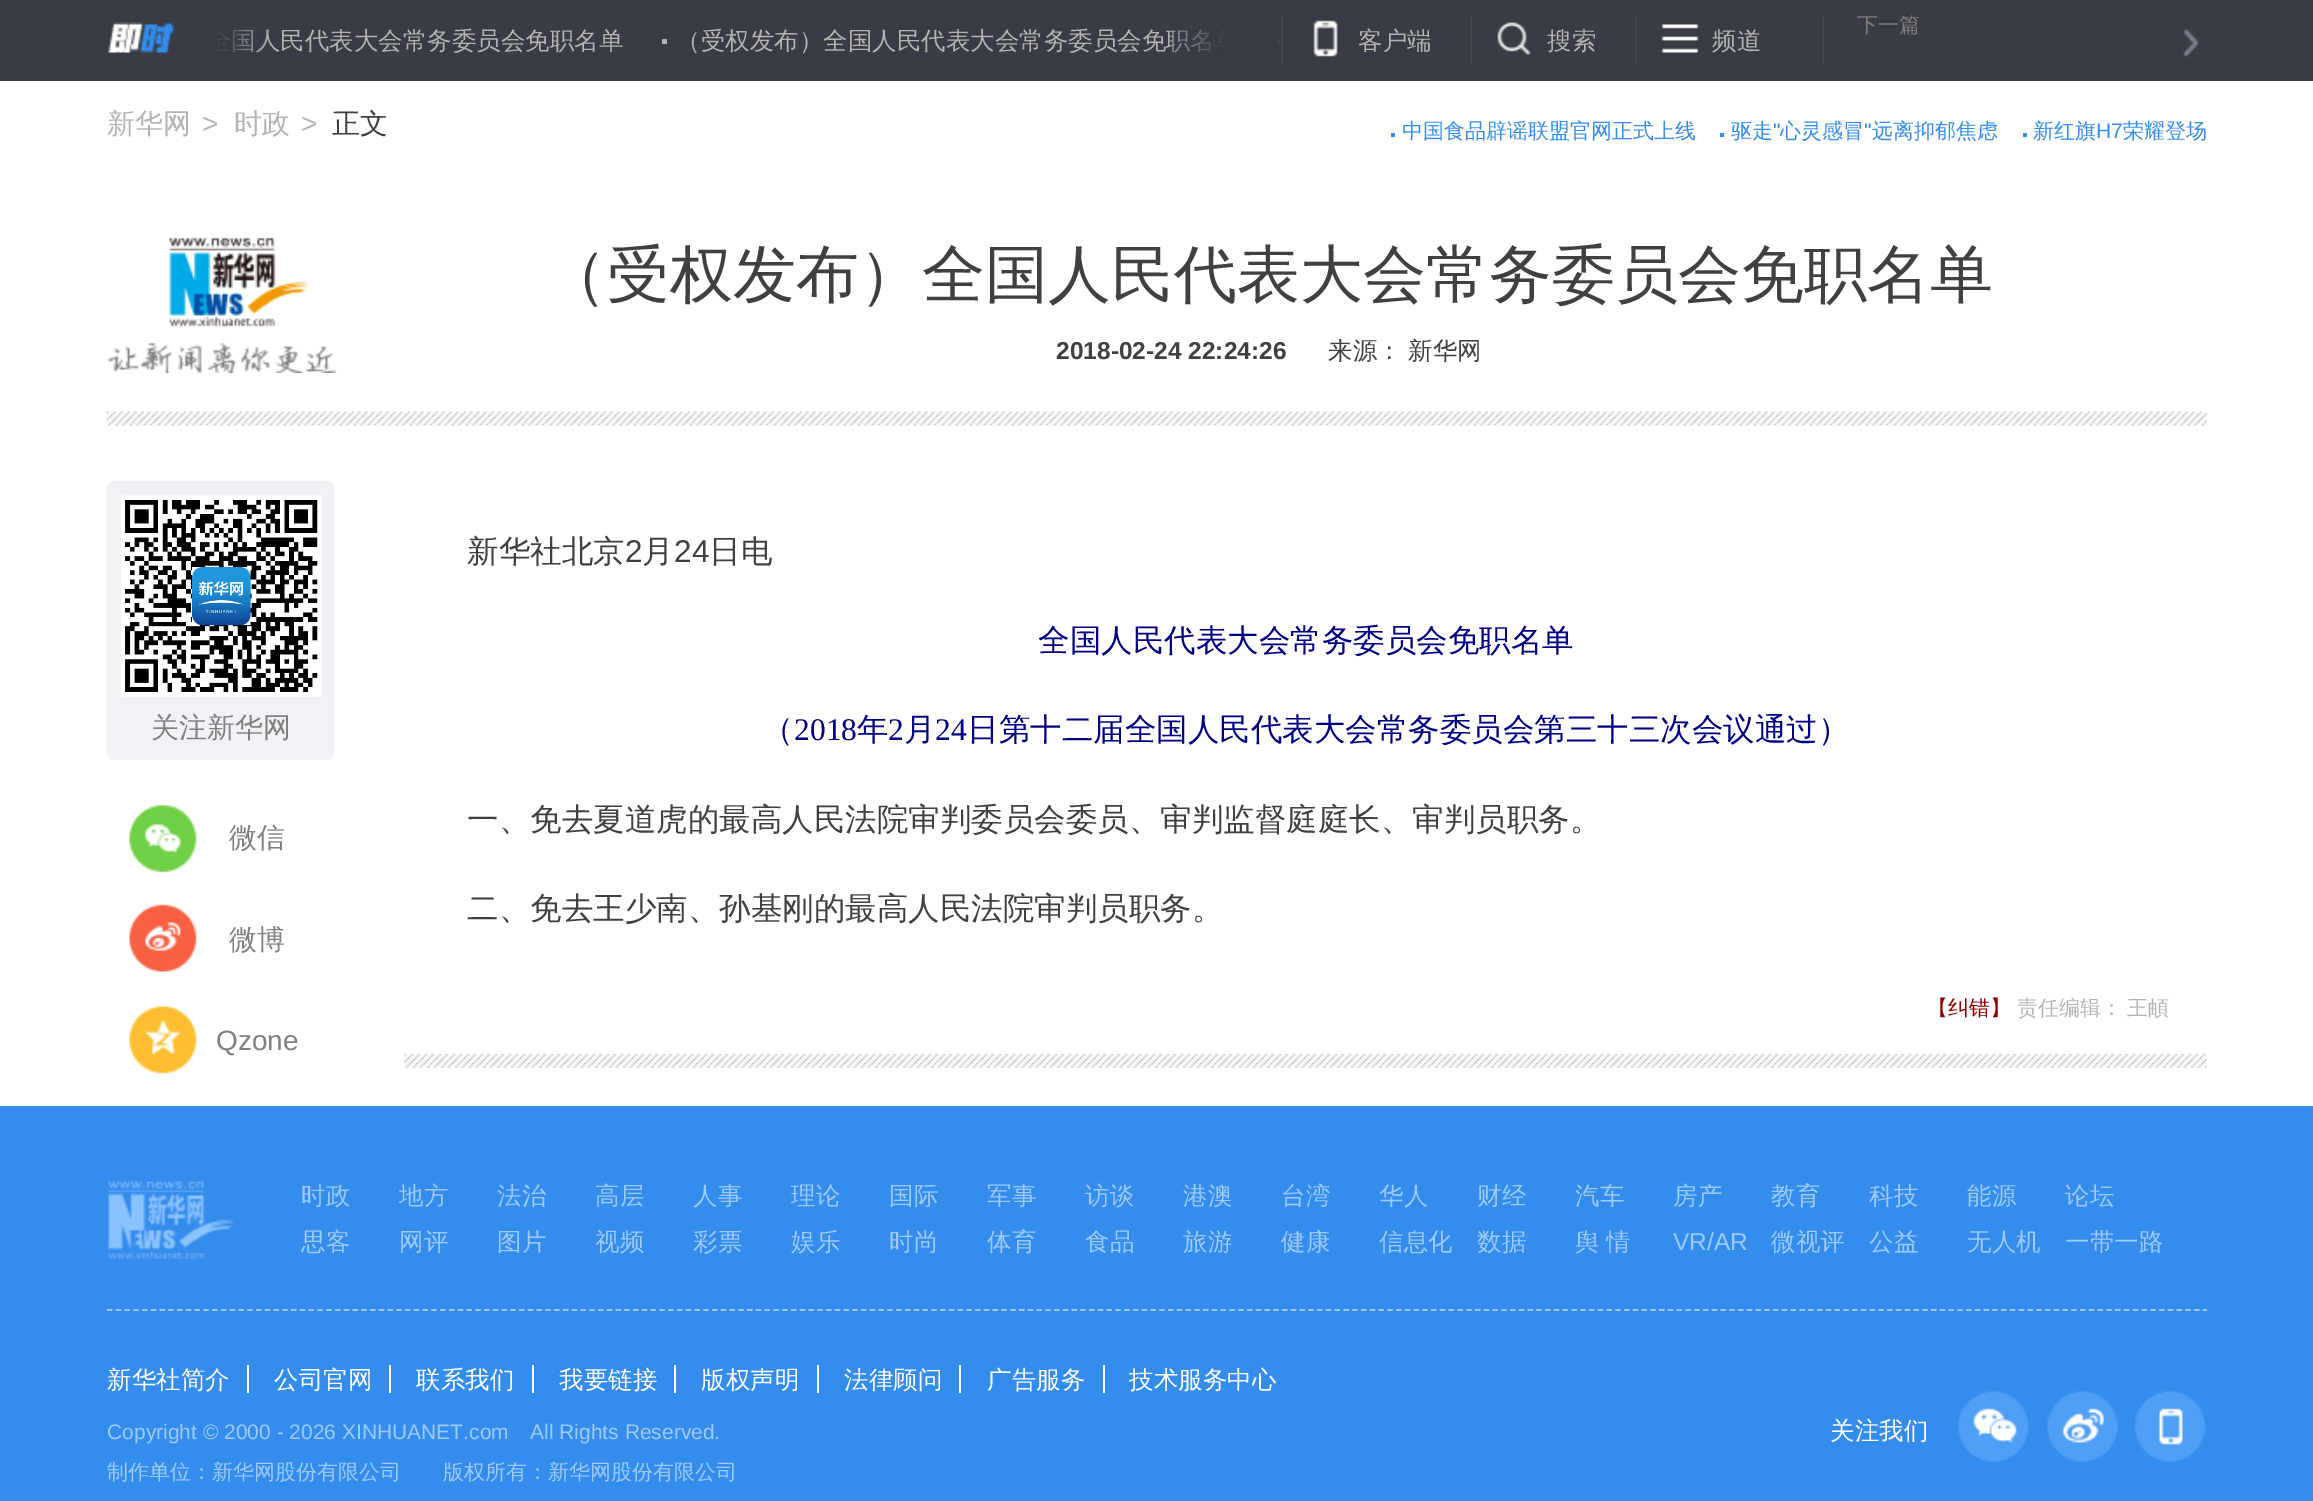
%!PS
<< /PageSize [2313 1501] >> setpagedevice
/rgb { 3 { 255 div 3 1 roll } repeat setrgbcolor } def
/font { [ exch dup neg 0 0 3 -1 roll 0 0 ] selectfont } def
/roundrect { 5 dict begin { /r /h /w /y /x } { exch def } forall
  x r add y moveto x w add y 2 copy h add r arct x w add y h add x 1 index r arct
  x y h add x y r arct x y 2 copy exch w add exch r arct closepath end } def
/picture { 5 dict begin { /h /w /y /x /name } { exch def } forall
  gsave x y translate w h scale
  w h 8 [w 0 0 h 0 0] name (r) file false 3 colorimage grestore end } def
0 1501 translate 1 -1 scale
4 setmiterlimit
255 255 255 rgb
0 0 2313 1501 rectfill
57 60 68 rgb
0 0 2313 81 rectfill
(img/1.rgb) 108 22 68 31 picture
179 179 179 rgb
662 39 5 5 rectfill
70 70 70 rgb
1281 16 2 49 rectfill
(img/4.rgb) 1313 20 25 37 picture
1470 16 2 49 rectfill
(img/5.rgb) 1497 22 34 33 picture
1635 16 2 49 rectfill
(img/6.rgb) 1661 24 38 29 picture
1822 16 2 49 rectfill
(img/7.rgb) 2183 29 16 28 picture
(img/8.rgb) 106 411 2101 15 picture
[
  [1391 133 4 4 52 140 236]
  [1720 133 4 4 52 140 236]
  [2023 133 4 4 52 140 236]
] { aload pop rgb rectfill } forall
(img/9.rgb) 108 237 229 136 picture
240 242 245 rgb
107 481 227 279 7 roundrect fill
(img/10.rgb) 121 495 201 202 picture
(img/11.rgb) 129 804 68 69 picture
(img/12.rgb) 129 904 68 68 picture
(img/13.rgb) 129 1006 68 68 picture
(img/14.rgb) 404 1053 1803 15 picture
52 140 236 rgb
0 1106 2313 395 rectfill
156 203 255 rgb
1.8 setlinewidth
[5.25 3.52] 0 setdash
107 1310 moveto 2207 1310 lineto stroke
(img/15.rgb) 108 1181 126 78 picture
[
  [247 1365 2 28 255 255 255]
  [389 1365 2 28 255 255 255]
  [532 1365 2 28 255 255 255]
  [674 1365 2 28 255 255 255]
  [817 1365 2 28 255 255 255]
  [959 1365 2 28 255 255 255]
  [1103 1365 2 28 255 255 255]
] { aload pop rgb rectfill } forall
(img/16.rgb) 1958 1391 71 71 picture
(img/17.rgb) 2047 1391 71 71 picture
(img/18.rgb) 2134 1391 72 71 picture
/WenQuanYiZenHei-Medium 24.5 font
179 179 179 rgb
231 49 moveto (国人民代表大会常务委员会免职名单) show
(img/2.rgb) 177 29 94 25 picture
676 49 moveto (（受权发布）全国人民代表大会常务委员会免职名) show
(img/3.rgb) 1173 28 106 25 picture
[
  [(客户端) 1358 49]
  [(搜索) 1547 49]
  [(频道) 1712 49]
] { aload pop moveto show } forall
/WenQuanYiZenHei-Medium 21 font
128 128 128 rgb
1857 32 moveto (下一篇) show
/WenQuanYiZenHei-Medium 28 font
179 179 179 rgb
107 133 moveto (新华网) show
/LiberationSans-Regular 28 font
202 133 moveto (>) show
/WenQuanYiZenHei-Medium 28 font
234 133 moveto (时政) show
/LiberationSans-Regular 28 font
301 133 moveto (>) show
/WenQuanYiZenHei-Medium 28 font
64 64 64 rgb
332 133 moveto (正文) show
/WenQuanYiZenHei-Medium 21 font
52 140 236 rgb
1402 138 moveto (中国食品辟谣联盟官网正式上线) show
1731 138 moveto (驱走) show
/LiberationSans-Regular 21 font
1773 138 moveto (") show
/WenQuanYiZenHei-Medium 21 font
1780 138 moveto (心灵感冒) show
/LiberationSans-Regular 21 font
1864 138 moveto (") show
/WenQuanYiZenHei-Medium 21 font
1872 138 moveto (远离抑郁焦虑) show
2033 138 moveto (新红旗) show
/LiberationSans-Regular 21 font
2096 138 moveto (H7) show
/WenQuanYiZenHei-Medium 21 font
2123 138 moveto (荣耀登场) show
/WenQuanYiZenHei-Medium 63 font
64 64 64 rgb
544 296 moveto (（受权发布）全国人民代表大会常务委员会免职名单) show
/LiberationSans-Bold 24.5 font
1056 359 moveto (2018-02-24 22:24:26) show
/WenQuanYiZenHei-Medium 24.5 font
1328 359 moveto (来源：) show
1408 359 moveto (新华网) show
/WenQuanYiZenHei-Medium 28 font
128 128 128 rgb
[
  [(关注新华网) 151 737]
  [(微信) 229 847]
  [(微博) 229 949]
] { aload pop moveto show } forall
/LiberationSans-Regular 28 font
216 1050 moveto (Qzone) show
/WenQuanYiZenHei-Medium 31.5 font
64 64 64 rgb
467 562 moveto (新华社北京) show
/LiberationSans-Regular 31.5 font
625 562 moveto (2) show
/WenQuanYiZenHei-Medium 31.5 font
642 562 moveto (月) show
/LiberationSans-Regular 31.5 font
674 562 moveto (24) show
/WenQuanYiZenHei-Medium 31.5 font
709 562 moveto (日电) show
0 0 128 rgb
1038 651 moveto (全国人民代表大会常务委员会免职名单) show
762 740 moveto (（) show
/LiberationSerif-Regular 31.5 font
794 740 moveto (2018) show
/WenQuanYiZenHei-Medium 31.5 font
857 740 moveto (年) show
/LiberationSerif-Regular 31.5 font
888 740 moveto (2) show
/WenQuanYiZenHei-Medium 31.5 font
904 740 moveto (月) show
/LiberationSerif-Regular 31.5 font
935 740 moveto (24) show
/WenQuanYiZenHei-Medium 31.5 font
967 740 moveto (日第十二届全国人民代表大会常务委员会第三十三次会议通过）) show
64 64 64 rgb
467 830 moveto (一、免去夏道虎的最高人民法院审判委员会委员、审判监督庭庭长、审判员职务。) show
467 919 moveto (二、免去王少南、孙基刚的最高人民法院审判员职务。) show
/WenQuanYiZenHei-Medium 21 font
138 0 0 rgb
1927 1015 moveto (【纠错】) show
179 179 179 rgb
2017 1015 moveto (责任编辑：) show
2127 1015 moveto (王頔) show
/WenQuanYiZenHei-Medium 24.5 font
156 203 255 rgb
[
  [(时政) 301 1204]
  [(地方) 399 1204]
  [(法治) 497 1204]
  [(高层) 595 1204]
  [(人事) 693 1204]
  [(理论) 791 1204]
  [(国际) 889 1204]
  [(军事) 987 1204]
  [(访谈) 1085 1204]
  [(港澳) 1183 1204]
  [(台湾) 1281 1204]
  [(华人) 1379 1204]
  [(财经) 1477 1204]
  [(汽车) 1575 1204]
  [(房产) 1673 1204]
  [(教育) 1771 1204]
  [(科技) 1869 1204]
  [(能源) 1967 1204]
  [(论坛) 2065 1204]
  [(思客) 301 1250]
  [(网评) 399 1250]
  [(图片) 497 1250]
  [(视频) 595 1250]
  [(彩票) 693 1250]
  [(娱乐) 791 1250]
  [(时尚) 889 1250]
  [(体育) 987 1250]
  [(食品) 1085 1250]
  [(旅游) 1183 1250]
  [(健康) 1281 1250]
  [(信息化) 1379 1250]
  [(数据) 1477 1250]
] { aload pop moveto show } forall
1575 1250 moveto -1 0 32 (舆 情) widthshow
/LiberationSans-Regular 24.5 font
1673 1250 moveto (VR/AR) show
/WenQuanYiZenHei-Medium 24.5 font
[
  [(微视评) 1771 1250]
  [(公益) 1869 1250]
  [(无人机) 1967 1250]
  [(一带一路) 2065 1250]
] { aload pop moveto show } forall
255 255 255 rgb
[
  [(新华社简介) 107 1388]
  [(公司官网) 274 1388]
  [(联系我们) 416 1388]
  [(我要链接) 559 1388]
  [(版权声明) 701 1388]
  [(法律顾问) 844 1388]
  [(广告服务) 987 1388]
  [(技术服务中心) 1129 1388]
] { aload pop moveto show } forall
/LiberationSans-Regular 21 font
156 203 255 rgb
107 1439 moveto (Copyright © 2000 - 2026 XINHUANET.com) show
530 1439 moveto (All Rights Reserved.) show
/WenQuanYiZenHei-Medium 21 font
107 1479 moveto (制作单位：新华网股份有限公司　　版权所有：新华网股份有限公司) show
/WenQuanYiZenHei-Medium 24.5 font
255 255 255 rgb
1830 1439 moveto (关注我们) show
showpage
